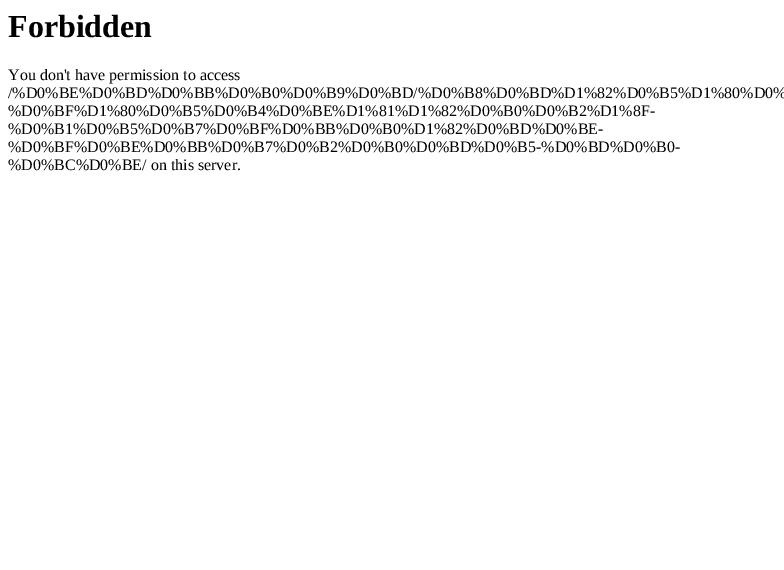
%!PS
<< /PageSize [784 570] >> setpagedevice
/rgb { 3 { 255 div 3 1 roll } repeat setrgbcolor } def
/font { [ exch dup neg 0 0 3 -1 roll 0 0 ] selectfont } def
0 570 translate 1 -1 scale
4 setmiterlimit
255 255 255 rgb
0 0 784 570 rectfill
/LiberationSerif-Bold 32 font
0 0 0 rgb
8 37 moveto (Forbidden) show
/LiberationSerif-Regular 16 font
[
  [(You don't have permission to access) 8 80]
  [(/%D0%BE%D0%BD%D0%BB%D0%B0%D0%B9%D0%BD/%D0%B8%D0%BD%D1%82%D0%B5%D1%80%D0%) 8 98]
  [(%D0%BF%D1%80%D0%B5%D0%B4%D0%BE%D1%81%D1%82%D0%B0%D0%B2%D1%8F-) 8 116]
  [(%D0%B1%D0%B5%D0%B7%D0%BF%D0%BB%D0%B0%D1%82%D0%BD%D0%BE-) 8 134]
  [(%D0%BF%D0%BE%D0%BB%D0%B7%D0%B2%D0%B0%D0%BD%D0%B5-%D0%BD%D0%B0-) 8 152]
  [(%D0%BC%D0%BE/ on this server.) 8 170]
] { aload pop moveto show } forall
showpage
